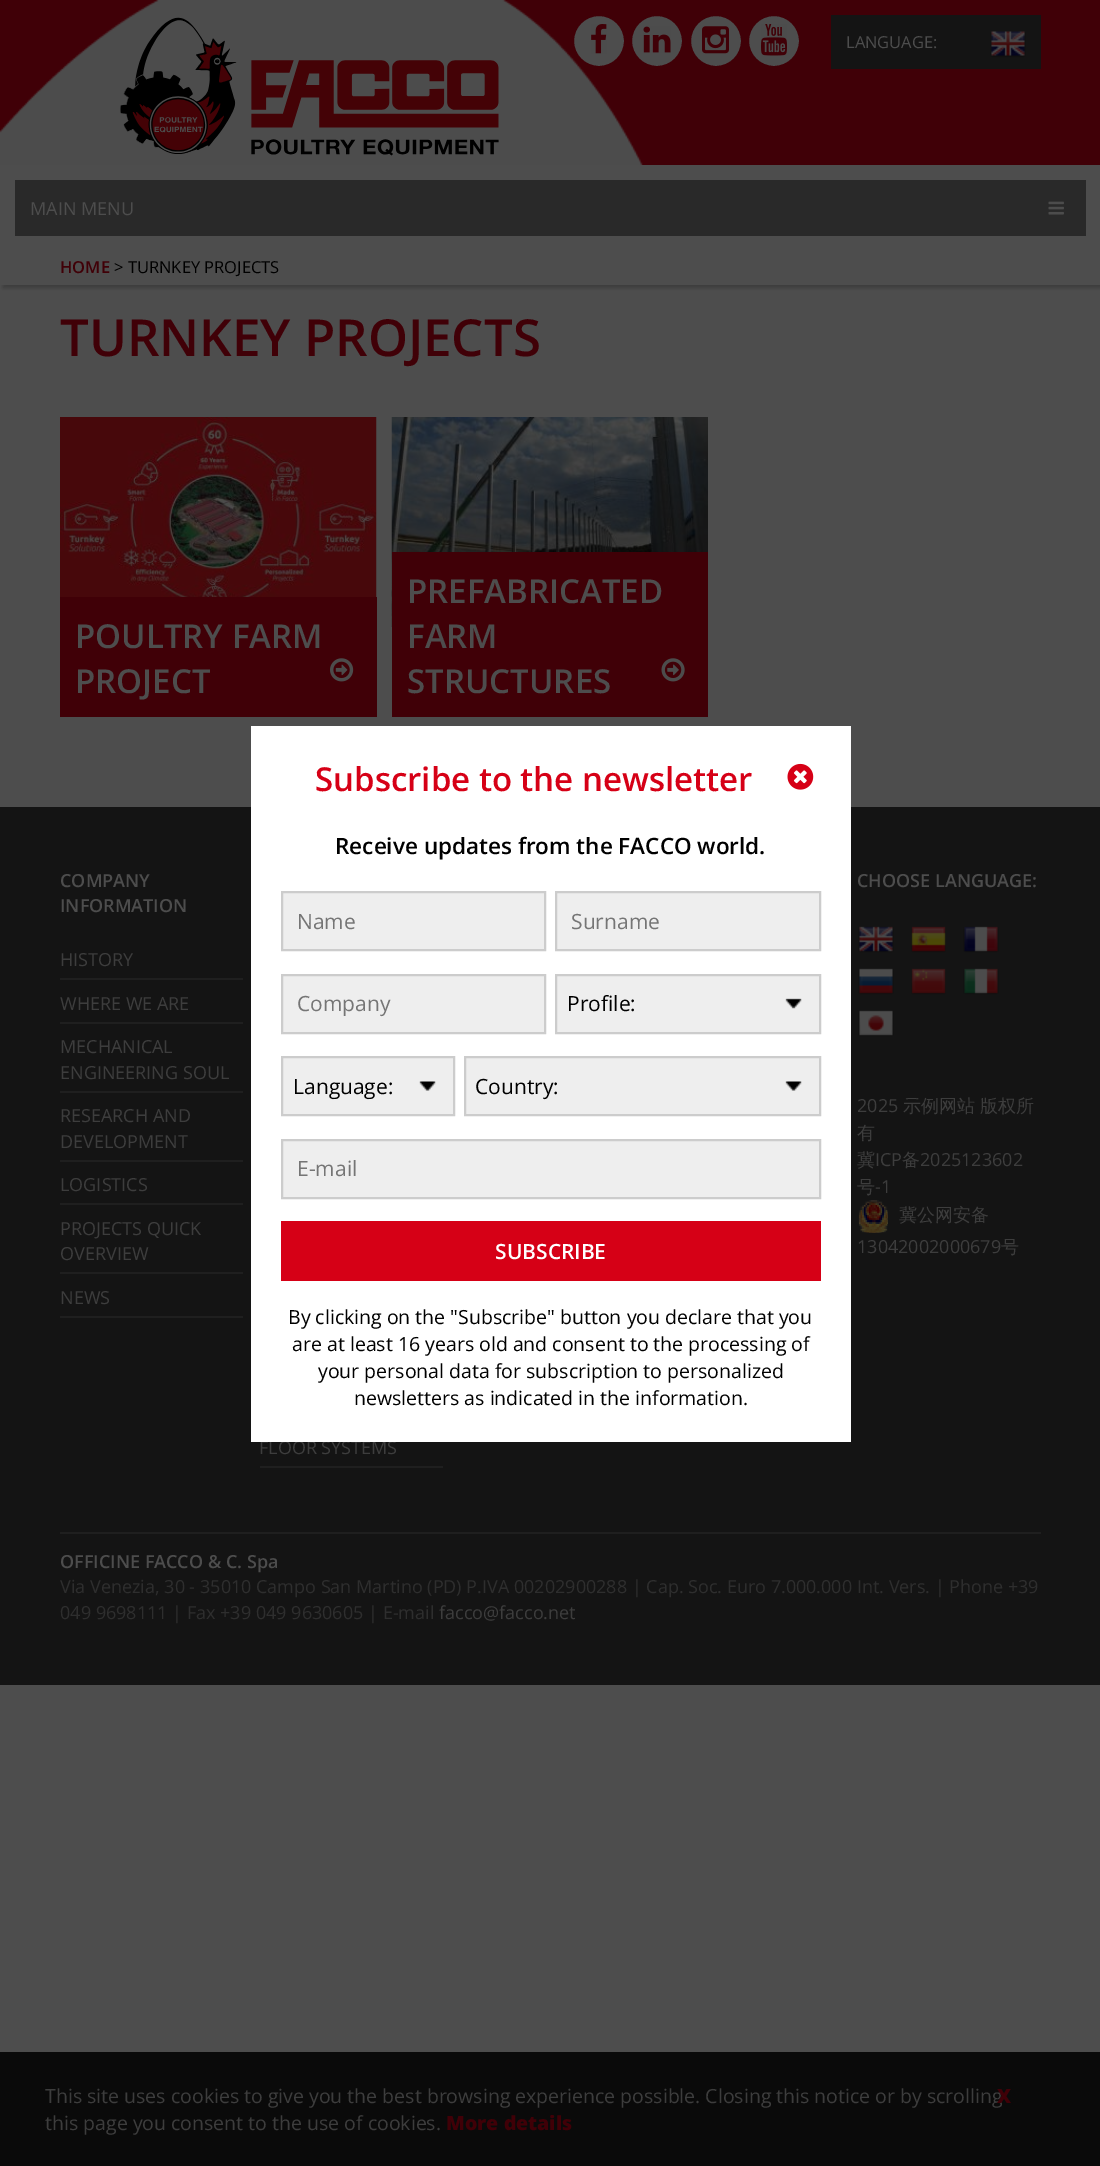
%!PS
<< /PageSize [1100 2166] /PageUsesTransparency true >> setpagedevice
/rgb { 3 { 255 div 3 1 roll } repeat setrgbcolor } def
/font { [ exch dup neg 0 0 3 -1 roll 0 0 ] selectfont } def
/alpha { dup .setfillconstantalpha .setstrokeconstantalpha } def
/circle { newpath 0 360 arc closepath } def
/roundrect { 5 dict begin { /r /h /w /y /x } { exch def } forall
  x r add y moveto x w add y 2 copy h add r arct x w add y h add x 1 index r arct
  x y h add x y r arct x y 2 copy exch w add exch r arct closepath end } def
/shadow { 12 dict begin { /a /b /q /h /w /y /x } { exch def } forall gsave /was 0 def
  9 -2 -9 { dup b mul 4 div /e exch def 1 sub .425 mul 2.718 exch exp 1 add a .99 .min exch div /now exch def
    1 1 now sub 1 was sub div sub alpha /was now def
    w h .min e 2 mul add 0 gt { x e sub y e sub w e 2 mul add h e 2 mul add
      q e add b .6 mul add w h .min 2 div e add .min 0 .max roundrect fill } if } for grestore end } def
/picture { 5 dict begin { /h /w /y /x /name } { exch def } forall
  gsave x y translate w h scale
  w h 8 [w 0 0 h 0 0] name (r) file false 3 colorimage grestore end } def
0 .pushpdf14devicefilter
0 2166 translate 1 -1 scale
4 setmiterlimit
77 77 77 rgb
0 0 1100 2166 rectfill
gsave
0 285 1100 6 rectclip
61 61 61 rgb
3 3 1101 285 0 1.5 1 shadow
grestore
64 0 7 rgb
0 0 1100 165 rectfill
(img/1.rgb) 0 0 643 165 picture
(img/2.rgb) 120 17 379 139 picture
77 77 77 rgb
599 41 26 circle gsave fill grestore
64 0 7 rgb
2 setlinewidth
stroke
(img/3.rgb) 591 24 16 30 picture
77 77 77 rgb
657 41 26 circle gsave fill grestore
64 0 7 rgb
stroke
(img/4.rgb) 643 26 28 27 picture
77 77 77 rgb
716 41 26 circle gsave fill grestore
64 0 7 rgb
stroke
(img/5.rgb) 702 26 27 28 picture
77 77 77 rgb
774 41 26 circle gsave fill grestore
64 0 7 rgb
stroke
(img/6.rgb) 761 24 26 32 picture
20 20 20 rgb
831 15 210 54 rectfill
(img/7.rgb) 990 31 36 27 picture
41 41 41 rgb
15 180 1071 56 rectfill
(img/8.rgb) 1048 201 16 14 picture
10 10 10 rgb
0 2052 1100 114 rectfill
(img/9.rgb) 60 417 317 180 picture
64 0 7 rgb
60 597 317 120 rectfill
(img/10.rgb) 330 658 24 24 picture
(img/11.rgb) 391 417 317 210 picture
392 552 316 165 rectfill
(img/12.rgb) 661 658 24 24 picture
[
  [0 807 1100 878 20 20 20]
  [60 978 183 2 31 31 31]
  [60 1022 183 2 31 31 31]
  [60 1091 183 2 31 31 31]
  [60 1160 183 2 31 31 31]
  [60 1203 183 2 31 31 31]
  [60 1272 183 2 31 31 31]
  [60 1316 183 2 31 31 31]
] { aload pop rgb rectfill } forall
(img/17.rgb) 858 926 36 27 picture
(img/18.rgb) 911 926 35 27 picture
(img/19.rgb) 963 926 36 27 picture
(img/20.rgb) 858 968 36 27 picture
(img/21.rgb) 911 968 35 27 picture
(img/22.rgb) 963 968 36 27 picture
(img/23.rgb) 858 1010 36 27 picture
(img/24.rgb) 858 1200 30 33 picture
260 1466 183 2 rectfill
60 1532 981 2 rectfill
/OpenSans-Regular 16.5 font
77 77 77 rgb
846 48 moveto (LANGUAGE:) show
/OpenSans-Regular 18 font
30 215 moveto (MAIN MENU) show
/OpenSans-SemiBold 16.5 font
64 0 7 rgb
60 273 moveto (HOME) show
/OpenSans-Regular 16.5 font
0 0 0 rgb
114 273 moveto (> TURNKEY PROJECTS) show
/OpenSans-Regular 19.5 font
61 61 61 rgb
45 2103 moveto (This site uses cookies to give you the best browsing experience possible. Closing this notice or by scrolling) show
/OpenSans-ExtraBold 19.5 font
64 0 7 rgb
997 2103 moveto (X) show
/OpenSans-Regular 19.5 font
61 61 61 rgb
45 2130 moveto (this page you consent to the use of cookies.) show
/OpenSans-ExtraBold 19.5 font
64 0 7 rgb
446 2130 moveto (More details) show
/OpenSans-SemiBold 51 font
60 356 moveto (TURNKEY PROJECTS) show
/OpenSans-SemiBold 33 font
77 77 77 rgb
[
  [(POULTRY FARM) 75 648]
  [(PROJECT) 75 693]
  [(PREFABRICATED) 407 603]
  [(FARM) 407 648]
  [(STRUCTURES) 407 693]
] { aload pop moveto show } forall
/OpenSans-SemiBold 18 font
60 887 moveto (COMPANY) show
60 912 moveto (INFORMATION) show
/OpenSans-Regular 18 font
61 61 61 rgb
[
  [(HISTORY) 60 966]
  [(WHERE WE ARE) 60 1010]
  [(MECHANICAL) 60 1053]
  [(ENGINEERING SOUL) 60 1079]
  [(RESEARCH AND) 60 1122]
  [(DEVELOPMENT) 60 1148]
  [(LOGISTICS) 60 1191]
  [(PROJECTS QUICK) 60 1235]
  [(OVERVIEW) 60 1260]
  [(NEWS) 60 1304]
] { aload pop moveto show } forall
/OpenSans-SemiBold 18 font
77 77 77 rgb
857 887 moveto (CHOOSE LANGUAGE:) show
/OpenSans-Regular 18 font
61 61 61 rgb
857 1112 moveto (2025) show
/WenQuanYiZenHei-Medium 18 font
[
  [(示例网站 版权所) 903 1112]
  [(有) 857 1139]
  [(冀) 857 1166]
] { aload pop moveto show } forall
/OpenSans-Regular 18 font
875 1166 moveto (ICP) show
/WenQuanYiZenHei-Medium 18 font
902 1166 moveto (备) show
/OpenSans-Regular 18 font
920 1166 moveto (2025123602) show
/WenQuanYiZenHei-Medium 18 font
857 1193 moveto (号) show
/OpenSans-Regular 18 font
875 1193 moveto (-1) show
/WenQuanYiZenHei-Medium 18 font
899 1221 moveto (冀公网安备) show
/OpenSans-Regular 18 font
857 1253 moveto (13042002000679) show
/WenQuanYiZenHei-Medium 18 font
1001 1253 moveto (号) show
/OpenSans-Regular 18 font
259 1454 moveto (FLOOR SYSTEMS) show
255 255 255 rgb
251 726 600 716 rectfill
214 0 22 rgb
281 1221 540 60 rectfill
/OpenSans-SemiBold 21 font
255 255 255 rgb
495 1259 moveto (SUBSCRIBE) show
/OpenSans-Regular 19.5 font
0 0 0 rgb
[
  [(newsletters as indicated in the information.) 354 1405]
  [(your personal data for subscription to personalized) 318 1378]
  [(are at least 16 years old and consent to the processing of) 292 1351]
  [(By clicking on the "Subscribe" button you declare that you) 288 1324]
] { aload pop moveto show } forall
238 238 238 rgb
282 1140 moveto 820 1140 lineto 820 1198 lineto 282 1198 lineto closepath gsave fill grestore
204 204 204 rgb
stroke
/OpenSans-Regular 21 font
117 117 117 rgb
297 1176 moveto (E-mail) show
/OpenSans-SemiBold 22.5 font
0 0 0 rgb
335 854 moveto (Receive updates from the FACCO world.) show
/OpenSans-SemiBold 33 font
214 0 22 rgb
315 791 moveto (Subscribe to the newsletter) show
238 238 238 rgb
466 1058 353 56 rectfill
(img/16.rgb) 785 1081 17 10 picture
204 204 204 rgb
465 1057 355 58 rectstroke
/OpenSans-Regular 21 font
0 0 0 rgb
475 1094 moveto (Country:) show
238 238 238 rgb
283 1058 170 56 rectfill
(img/15.rgb) 419 1081 17 10 picture
204 204 204 rgb
282 1057 172 58 rectstroke
0 0 0 rgb
293 1094 moveto (Language:) show
238 238 238 rgb
557 976 262 56 rectfill
(img/14.rgb) 785 998 17 11 picture
204 204 204 rgb
556 975 264 58 rectstroke
0 0 0 rgb
567 1011 moveto (Profile:) show
238 238 238 rgb
282 975 moveto 545 975 lineto 545 1033 lineto 282 1033 lineto closepath gsave fill grestore
204 204 204 rgb
stroke
117 117 117 rgb
297 1011 moveto (Company) show
238 238 238 rgb
556 892 moveto 820 892 lineto 820 950 lineto 556 950 lineto closepath gsave fill grestore
204 204 204 rgb
stroke
117 117 117 rgb
571 929 moveto (Surname) show
238 238 238 rgb
282 892 moveto 545 892 lineto 545 950 lineto 282 950 lineto closepath gsave fill grestore
204 204 204 rgb
stroke
117 117 117 rgb
297 929 moveto (Name) show
(img/13.rgb) 787 763 27 27 picture
/OpenSans-SemiBold 18 font
77 77 77 rgb
60 1568 moveto (OFFICINE FACCO & C. Spa) show
/OpenSans-Regular 18 font
46 46 46 rgb
60 1593 moveto (Via Venezia, 30 - 35010 Campo San Martino \(PD\) P.IVA 00202900288 | Cap. Soc. Euro 7.000.000 Int. Vers. | Phone +39) show
60 1619 moveto (049 9698111 | Fax +39 049 9630605 | E-mail) show
61 61 61 rgb
439 1619 moveto (facco@facco.net) show
.poppdf14devicefilter showpage
